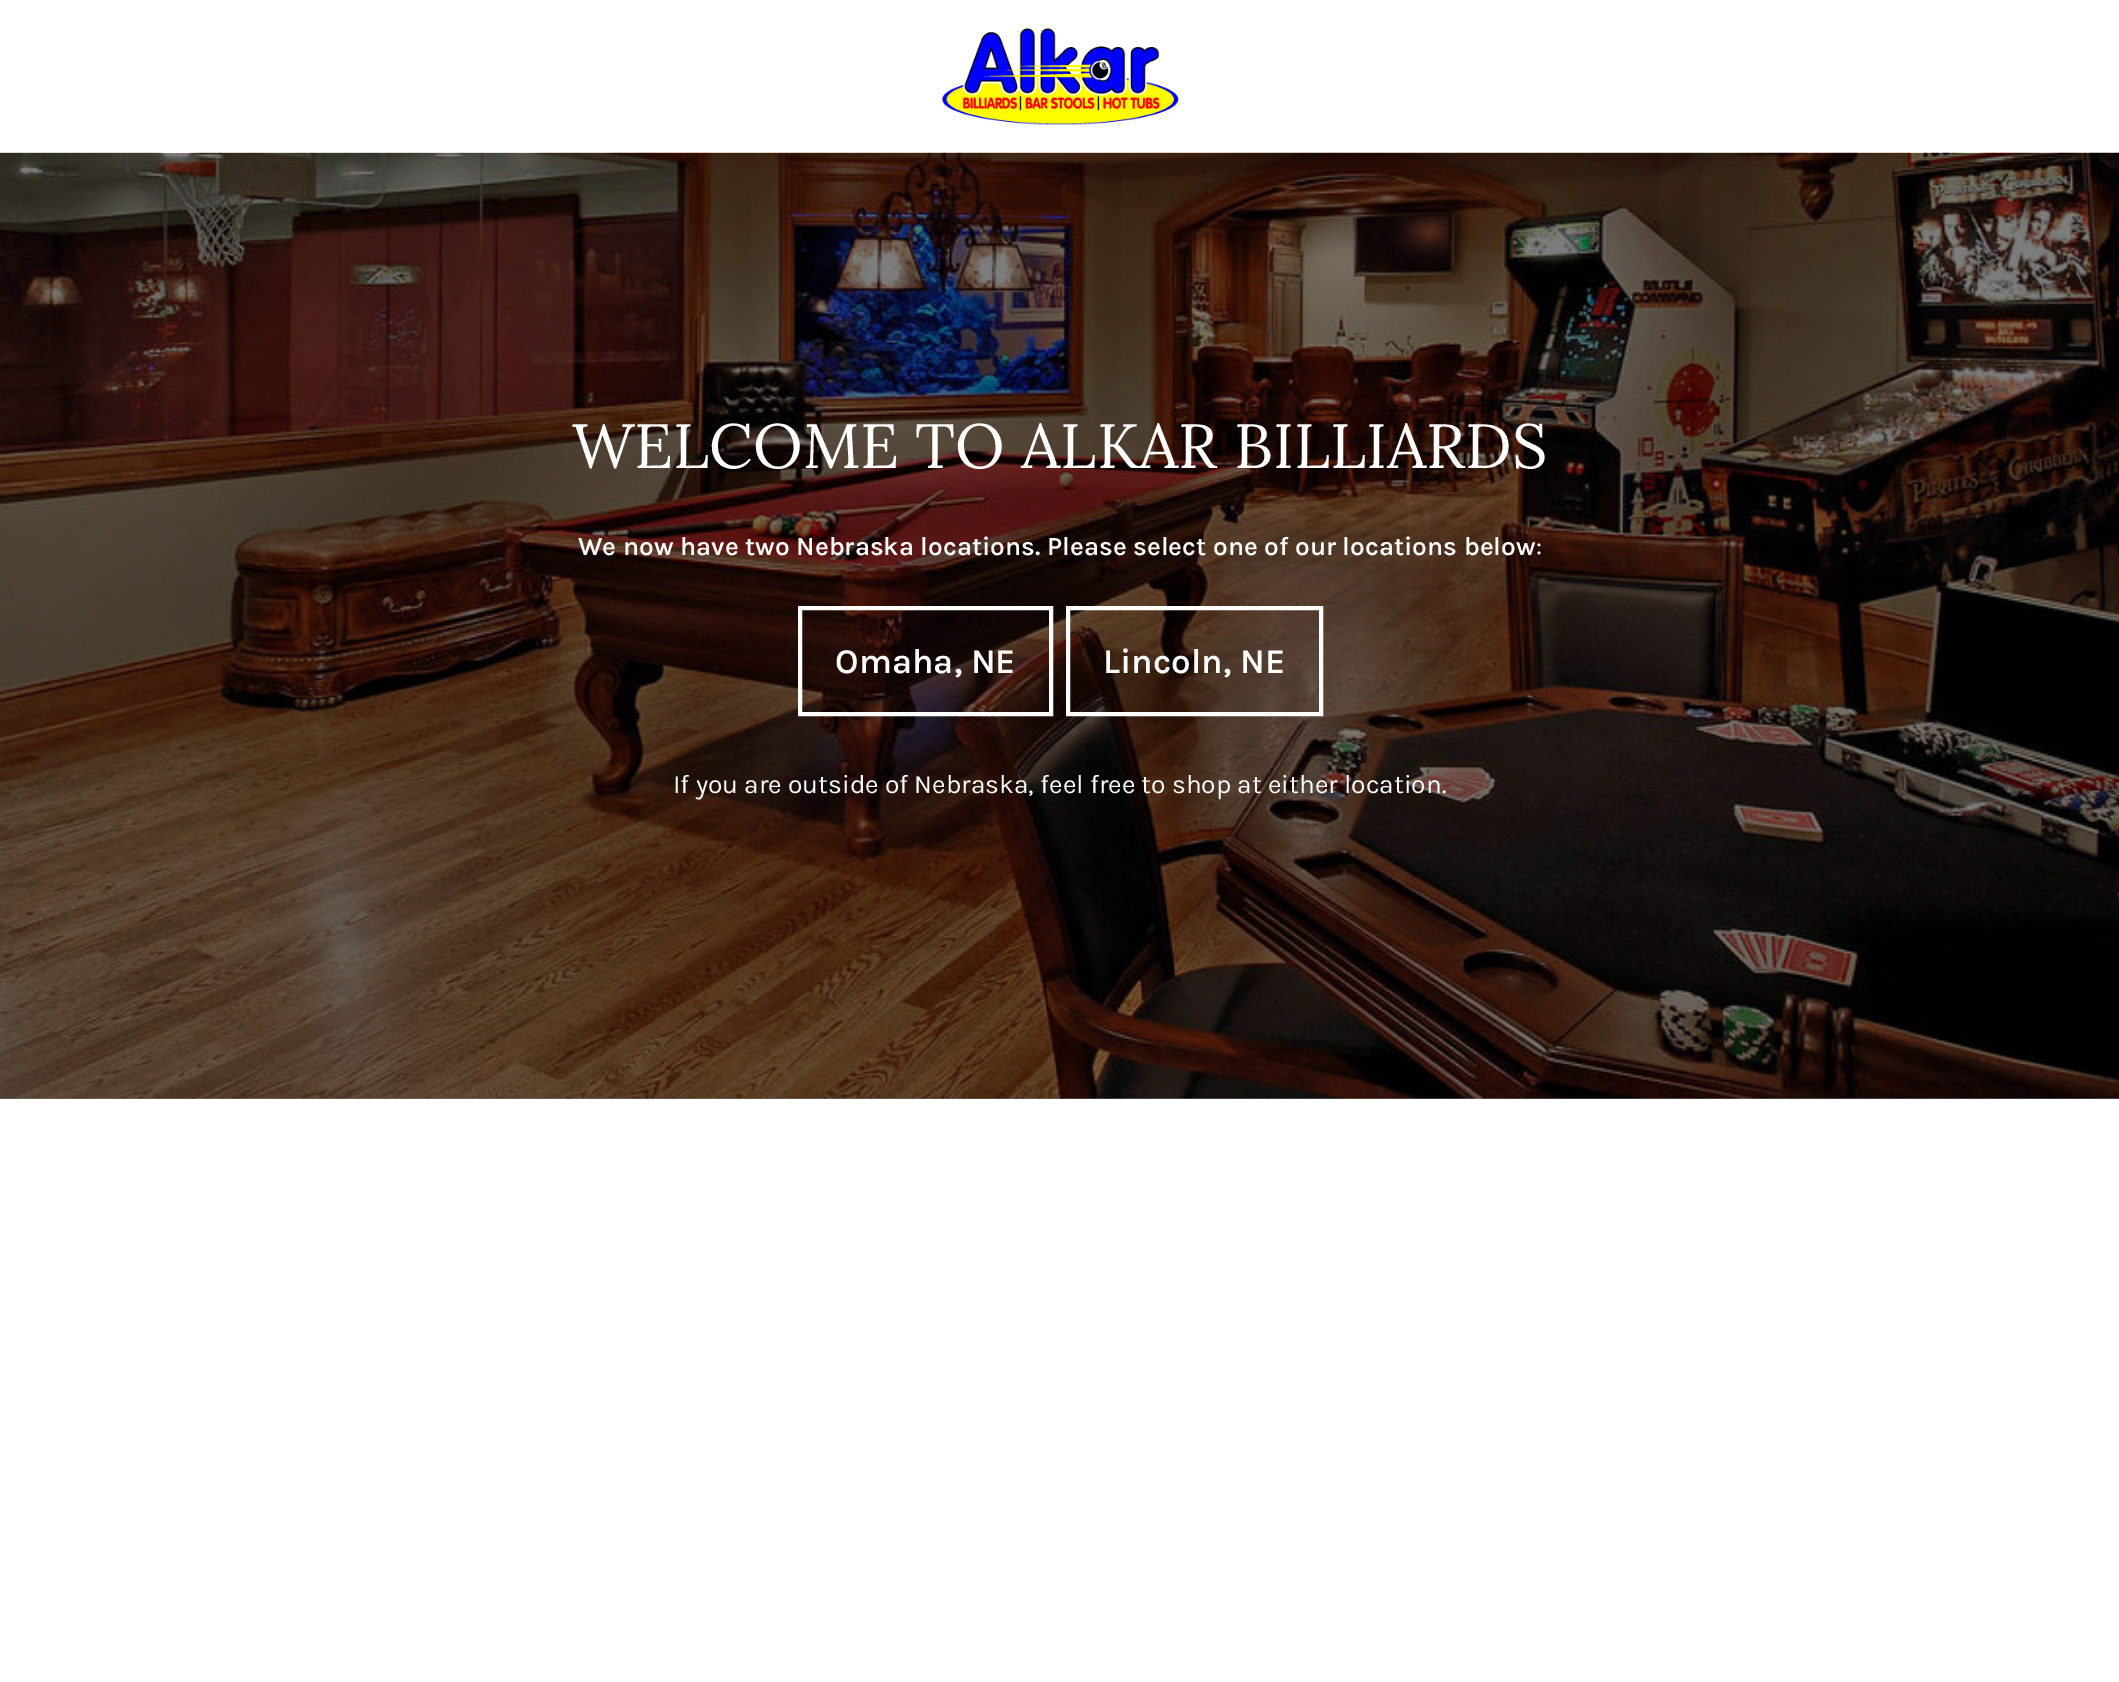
%!PS
<< /PageSize [2119 1682] /PageUsesTransparency true >> setpagedevice
/rgb { 3 { 255 div 3 1 roll } repeat setrgbcolor } def
/font { [ exch dup neg 0 0 3 -1 roll 0 0 ] selectfont } def
/alpha { dup .setfillconstantalpha .setstrokeconstantalpha } def
/picture { 5 dict begin { /h /w /y /x /name } { exch def } forall
  gsave x y translate w h scale
  w h 8 [w 0 0 h 0 0] name (r) file false 3 colorimage grestore end } def
0 .pushpdf14devicefilter
0 1682 translate 1 -1 scale
4 setmiterlimit
255 255 255 rgb
0 0 2119 1682 rectfill
(img/1.rgb) 942 28 237 97 picture
(img/2.rgb) 0 152 2119 947 picture
0.5 alpha
0 0 0 rgb
0 153 2119 946 rectfill
1 alpha
255 255 255 rgb
4 setlinewidth
800 608 251 106 rectstroke
1068 608 253 106 rectstroke
/Lora-Regular 62.5 font
572 468 moveto (WELCOME TO ALKAR BILLIARDS) show
/Karla-SemiBold 26.25 font
578 555 moveto (We now have two Nebraska locations. Please select one of our locations below) show
/Karla-Regular 26.25 font
1536 555 moveto (:) show
/Karla-SemiBold 35 font
835 673 moveto (Omaha, NE) show
1103 673 moveto (Lincoln, NE) show
/Karla-Regular 26.25 font
673 793 moveto (If you are outside of Nebraska, feel free to shop at either location.) show
.poppdf14devicefilter showpage
